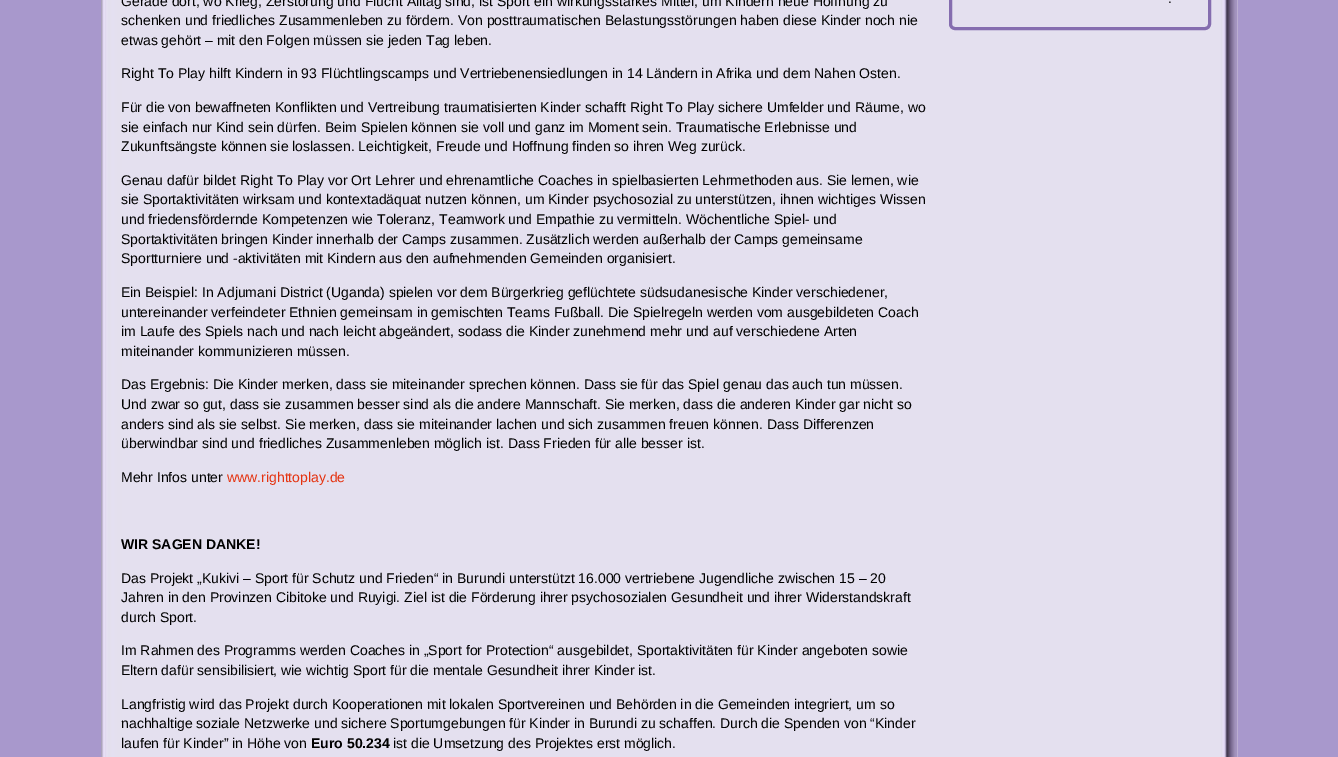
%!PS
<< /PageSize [1338 757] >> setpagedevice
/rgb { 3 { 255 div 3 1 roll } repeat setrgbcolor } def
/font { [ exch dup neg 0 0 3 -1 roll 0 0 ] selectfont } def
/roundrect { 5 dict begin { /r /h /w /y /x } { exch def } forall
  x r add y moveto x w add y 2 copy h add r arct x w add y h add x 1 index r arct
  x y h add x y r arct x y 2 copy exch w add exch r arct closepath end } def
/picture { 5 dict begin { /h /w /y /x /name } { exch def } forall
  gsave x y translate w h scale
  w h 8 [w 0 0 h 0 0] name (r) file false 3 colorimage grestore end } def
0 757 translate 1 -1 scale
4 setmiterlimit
168 152 204 rgb
0 0 1338 757 rectfill
(img/1.rgb) 101 0 1137 757 picture
(img/2.rgb) 101 0 1137 757 picture
133 109 175 rgb
3 setlinewidth
950.5 -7.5 259 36 4.5 roundrect stroke
/LiberationSans-Regular 14 font
0 0 0 rgb
[
  [(Gerade dort, wo Krieg, Zerstörung und Flucht Alltag sind, ist Sport ein wirkungsstarkes Mittel, um Kindern neue Hoffnung zu) 121 6]
  [(schenken und friedliches Zusammenleben zu fördern. Von posttraumatischen Belastungsstörungen haben diese Kinder noch nie) 121 25]
  [(etwas gehört – mit den Folgen müssen sie jeden Tag leben.) 121 45]
  [(Right To Play hilft Kindern in 93 Flüchtlingscamps und Vertriebenensiedlungen in 14 Ländern in Afrika und dem Nahen Osten.) 121 78]
  [(Für die von bewaffneten Konflikten und Vertreibung traumatisierten Kinder schafft Right To Play sichere Umfelder und Räume, wo) 121 112]
  [(sie einfach nur Kind sein dürfen. Beim Spielen können sie voll und ganz im Moment sein. Traumatische Erlebnisse und) 121 132]
  [(Zukunftsängste können sie loslassen. Leichtigkeit, Freude und Hoffnung finden so ihren Weg zurück.) 121 151]
  [(Genau dafür bildet Right To Play vor Ort Lehrer und ehrenamtliche Coaches in spielbasierten Lehrmethoden aus. Sie lernen, wie) 121 185]
  [(sie Sportaktivitäten wirksam und kontextadäquat nutzen können, um Kinder psychosozial zu unterstützen, ihnen wichtiges Wissen) 121 204]
  [(und friedensfördernde Kompetenzen wie Toleranz, Teamwork und Empathie zu vermitteln. Wöchentliche Spiel- und) 121 224]
  [(Sportaktivitäten bringen Kinder innerhalb der Camps zusammen. Zusätzlich werden außerhalb der Camps gemeinsame) 121 244]
  [(Sportturniere und -aktivitäten mit Kindern aus den aufnehmenden Gemeinden organisiert.) 121 263]
  [(Ein Beispiel: In Adjumani District \(Uganda\) spielen vor dem Bürgerkrieg geflüchtete südsudanesische Kinder verschiedener,) 121 297]
  [(untereinander verfeindeter Ethnien gemeinsam in gemischten Teams Fußball. Die Spielregeln werden vom ausgebildeten Coach) 121 317]
  [(im Laufe des Spiels nach und nach leicht abgeändert, sodass die Kinder zunehmend mehr und auf verschiedene Arten) 121 336]
  [(miteinander kommunizieren müssen.) 121 356]
  [(Das Ergebnis: Die Kinder merken, dass sie miteinander sprechen können. Dass sie für das Spiel genau das auch tun müssen.) 121 389]
  [(Und zwar so gut, dass sie zusammen besser sind als die andere Mannschaft. Sie merken, dass die anderen Kinder gar nicht so) 121 409]
  [(anders sind als sie selbst. Sie merken, dass sie miteinander lachen und sich zusammen freuen können. Dass Differenzen) 121 429]
  [(überwindbar sind und friedliches Zusammenleben möglich ist. Dass Frieden für alle besser ist.) 121 448]
  [(Mehr Infos unter) 121 482]
] { aload pop moveto show } forall
229 50 15 rgb
227 482 moveto (www.righttoplay.de) show
/LiberationSans-Bold 14 font
0 0 0 rgb
121 549 moveto (WIR SAGEN DANKE!) show
/LiberationSans-Regular 14 font
[
  [(Das Projekt „Kukivi – Sport für Schutz und Frieden“ in Burundi unterstützt 16.000 vertriebene Jugendliche zwischen 15 – 20) 121 583]
  [(Jahren in den Provinzen Cibitoke und Ruyigi. Ziel ist die Förderung ihrer psychosozialen Gesundheit und ihrer Widerstandskraft) 121 602]
  [(durch Sport.) 121 622]
  [(Im Rahmen des Programms werden Coaches in „Sport for Protection“ ausgebildet, Sportaktivitäten für Kinder angeboten sowie) 121 655]
  [(Eltern dafür sensibilisiert, wie wichtig Sport für die mentale Gesundheit ihrer Kinder ist.) 121 675]
  [(Langfristig wird das Projekt durch Kooperationen mit lokalen Sportvereinen und Behörden in die Gemeinden integriert, um so) 121 709]
  [(nachhaltige soziale Netzwerke und sichere Sportumgebungen für Kinder in Burundi zu schaffen. Durch die Spenden von “Kinder) 121 728]
  [(laufen für Kinder” in Höhe von) 121 748]
] { aload pop moveto show } forall
/LiberationSans-Bold 14 font
311 748 moveto (Euro 50.234) show
/LiberationSans-Regular 14 font
393 748 moveto (ist die Umsetzung des Projektes erst möglich.) show
1168 3 moveto (.) show
showpage
